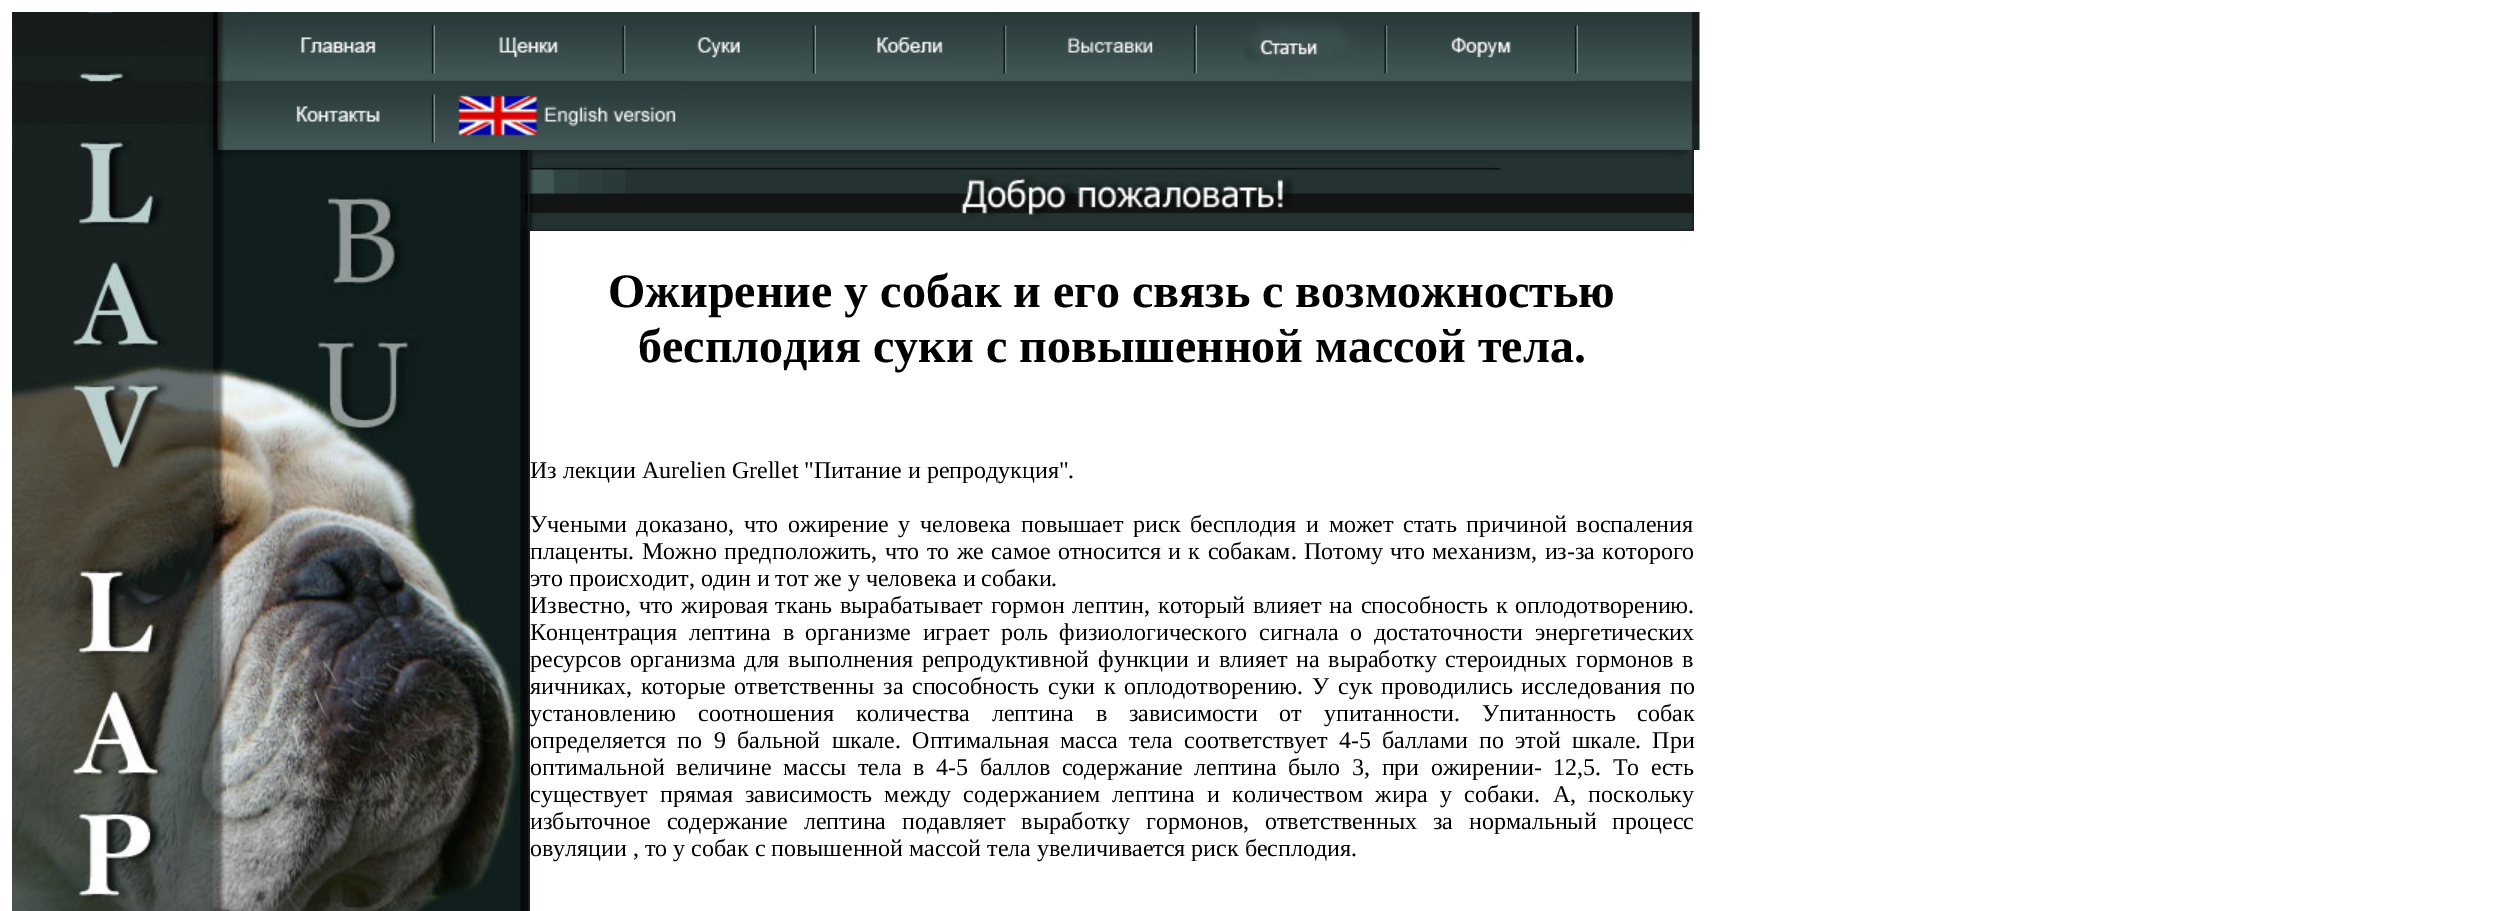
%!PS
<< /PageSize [2497 911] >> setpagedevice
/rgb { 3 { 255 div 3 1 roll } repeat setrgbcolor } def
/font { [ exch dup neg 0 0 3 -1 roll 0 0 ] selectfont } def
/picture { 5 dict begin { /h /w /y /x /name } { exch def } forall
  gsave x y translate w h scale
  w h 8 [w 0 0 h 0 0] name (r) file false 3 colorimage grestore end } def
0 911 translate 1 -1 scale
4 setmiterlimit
255 255 255 rgb
0 0 2497 911 rectfill
(img/1.rgb) 12 12 1688 138 picture
(img/2.rgb) 244 12 191 69 picture
(img/3.rgb) 435 12 191 69 picture
(img/4.rgb) 625 12 191 69 picture
(img/5.rgb) 816 12 191 69 picture
(img/6.rgb) 1006 12 191 69 picture
(img/7.rgb) 1197 12 191 69 picture
(img/8.rgb) 1387 12 191 69 picture
(img/9.rgb) 245 81 190 69 picture
(img/10.rgb) 435 81 253 69 picture
29 35 35 rgb
529 150 1 761 rectfill
(img/11.rgb) 528 150 1 761 picture
(img/12.rgb) 12 150 516 761 picture
1693 150 1 81 rectfill
(img/13.rgb) 529 150 1165 81 picture
/LiberationSerif-Bold 48 font
0 0 0 rgb
608 307 moveto (Ожирение у собак и его связь с возможностью) show
638 362 moveto (бесплодия суки с повышенной массой тела.) show
/LiberationSerif-Regular 24 font
530 478 moveto (Из лекции Aurelien Grellet "Питание и репродукция".) show
530 532 moveto 3.75 0 32 (Учеными доказано, что ожирение у человека повышает риск бесплодия и может стать причиной воспаления) widthshow
530 559 moveto 1.4 0 32 (плаценты. Можно предположить, что то же самое относится и к собакам. Потому что механизм, из-за которого) widthshow
530 586 moveto (это происходит, один и тот же у человека и собаки.) show
530 613 moveto 1.9 0 32 (Известно, что жировая ткань вырабатывает гормон лептин, который влияет на способность к оплодотворению.) widthshow
530 640 moveto 5.6 0 32 (Концентрация лептина в организме играет роль физиологического сигнала о достаточности энергетических) widthshow
530 667 moveto 2.75 0 32 (ресурсов организма для выполнения репродуктивной функции и влияет на выработку стероидных гормонов в) widthshow
530 694 moveto 2.75 0 32 (яичниках, которые ответственны за способность суки к оплодотворению. У сук проводились исследования по) widthshow
530 721 moveto 15.75 0 32 (установлению соотношения количества лептина в зависимости от упитанности. Упитанность собак) widthshow
530 748 moveto 5.25 0 32 (определяется по 9 бальной шкале. Оптимальная масса тела соответствует 4-5 баллами по этой шкале. При) widthshow
530 775 moveto 5.6 0 32 (оптимальной величине массы тела в 4-5 баллов содержание лептина было 3, при ожирении- 12,5. То есть) widthshow
530 802 moveto 6.4 0 32 (существует прямая зависимость между содержанием лептина и количеством жира у собаки. А, поскольку) widthshow
530 829 moveto 10 0 32 (избыточное содержание лептина подавляет выработку гормонов, ответственных за нормальный процесс) widthshow
530 856 moveto (овуляции , то у собак с повышенной массой тела увеличивается риск бесплодия.) show
showpage
